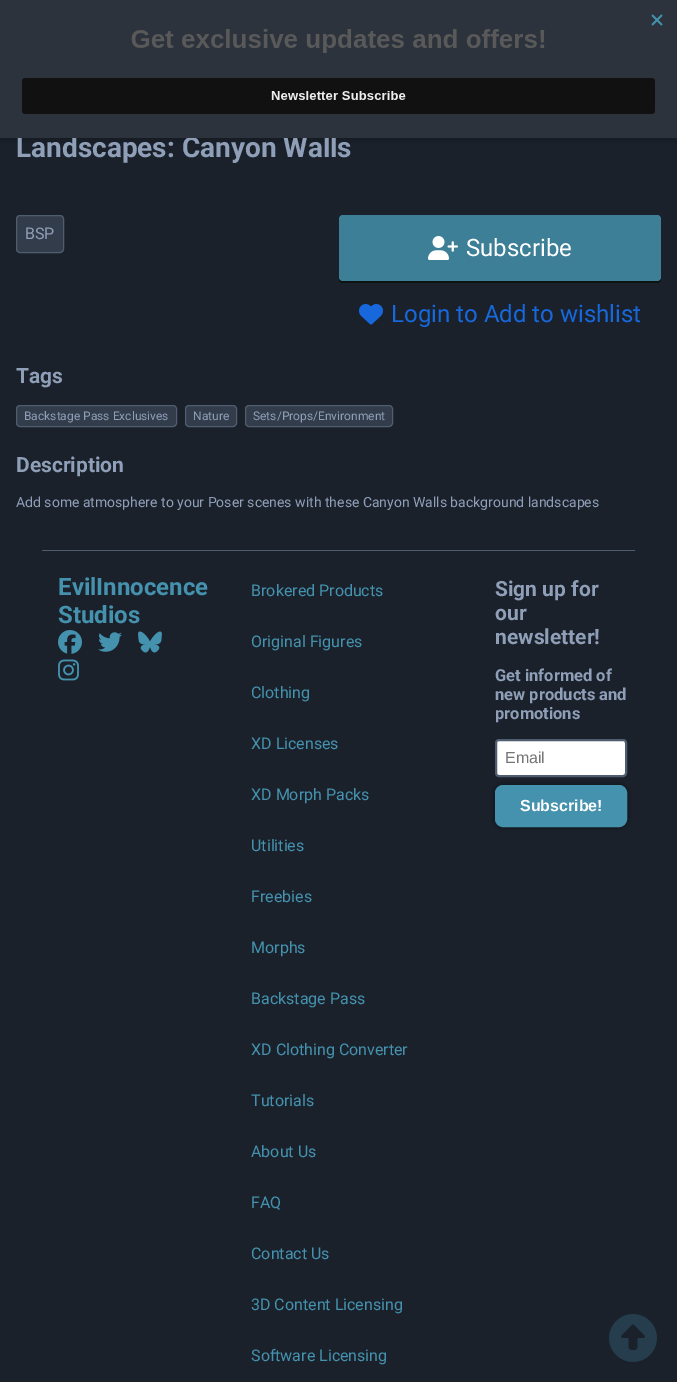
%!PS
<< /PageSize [677 1382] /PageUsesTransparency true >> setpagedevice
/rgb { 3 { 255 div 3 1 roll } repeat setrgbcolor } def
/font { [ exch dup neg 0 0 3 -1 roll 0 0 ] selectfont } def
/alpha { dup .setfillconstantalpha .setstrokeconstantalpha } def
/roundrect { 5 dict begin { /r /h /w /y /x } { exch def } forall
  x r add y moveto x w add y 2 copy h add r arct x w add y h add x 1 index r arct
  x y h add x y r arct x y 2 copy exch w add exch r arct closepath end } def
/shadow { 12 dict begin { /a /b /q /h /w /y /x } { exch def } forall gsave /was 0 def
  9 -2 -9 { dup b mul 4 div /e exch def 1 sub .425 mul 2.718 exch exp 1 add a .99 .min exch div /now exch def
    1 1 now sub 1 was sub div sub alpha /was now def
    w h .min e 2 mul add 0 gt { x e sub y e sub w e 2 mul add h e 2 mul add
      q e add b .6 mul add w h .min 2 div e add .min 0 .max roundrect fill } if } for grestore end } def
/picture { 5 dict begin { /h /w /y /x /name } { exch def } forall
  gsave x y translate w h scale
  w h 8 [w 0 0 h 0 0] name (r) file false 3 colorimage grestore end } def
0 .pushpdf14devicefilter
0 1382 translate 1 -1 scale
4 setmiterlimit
26 33 43 rgb
0 0 677 1382 rectfill
0 0 0 rgb
0 3 677 138 0 3 0.2 shadow
50 60 75 rgb
16.5 215.5 47 37 3.5 roundrect gsave fill grestore
78 94 111 rgb
stroke
14 19 20 rgb
339 277 moveto 339 280 339 283 343 283 curveto 657 283 lineto 661 283 661 280 661 277 curveto 661 279 659 281 657 281 curveto 343 281 lineto 341 281 339 279 339 277 curveto closepath fill
61 127 151 rgb
339 215 322 66 4 roundrect fill
(img/2.rgb) 428 236 30 24 picture
(img/3.rgb) 359 304 24 21 picture
50 60 75 rgb
16.5 405.5 160 21 3.5 roundrect gsave fill grestore
78 94 111 rgb
stroke
50 60 75 rgb
185.5 405.5 51 21 3.5 roundrect gsave fill grestore
78 94 111 rgb
stroke
50 60 75 rgb
245.5 405.5 147 21 3.5 roundrect gsave fill grestore
78 94 111 rgb
stroke
42 550 593 1 rectfill
(img/4.rgb) 58 630 24 24 picture
(img/5.rgb) 98 632 24 20 picture
(img/6.rgb) 138 631 24 22 picture
(img/7.rgb) 58 659 21 22 picture
255 255 255 rgb
496 740 130 36 3 roundrect gsave fill grestore
78 94 111 rgb
2 setlinewidth
stroke
0 0 0 rgb
495 785 132 42 8 2.5 0.5 shadow
68 146 174 rgb
497 787 128 38 6 roundrect gsave fill grestore
4 setlinewidth
stroke
(img/8.rgb) 609 1314 48 48 picture
/Roboto-Bold 28 font
143 159 184 rgb
16 157 moveto (Landscapes: Canyon Walls) show
(img/1.rgb) 0 0 677 138 picture
/Roboto-Regular 16 font
25 239 moveto (BSP) show
/Roboto-Regular 24 font
255 255 255 rgb
466 256 moveto (Subscribe) show
22 104 220 rgb
391 322 moveto (Login to Add to wishlist) show
/Roboto-Bold 21 font
143 159 184 rgb
16 383 moveto (Tags) show
/Roboto-Regular 12 font
[
  [(Backstage Pass Exclusives) 24 420]
  [(Nature) 193 420]
  [(Sets/Props/Environment) 253 420]
] { aload pop moveto show } forall
/Roboto-Bold 21 font
16 472 moveto (Description) show
/Roboto-Regular 14 font
16 507 moveto (Add some atmosphere to your Poser scenes with these Canyon Walls background landscapes) show
/Roboto-Bold 24 font
68 146 174 rgb
58 595 moveto (EvilInnocence) show
58 623 moveto (Studios) show
/Roboto-Regular 16 font
[
  [(Brokered Products) 251 596]
  [(Original Figures) 251 647]
  [(Clothing) 251 698]
  [(XD Licenses) 251 749]
  [(XD Morph Packs) 251 800]
  [(Utilities) 251 851]
  [(Freebies) 251 902]
  [(Morphs) 251 953]
  [(Backstage Pass) 251 1004]
  [(XD Clothing Converter) 251 1055]
  [(Tutorials) 251 1106]
  [(About Us) 251 1157]
  [(FAQ) 251 1208]
  [(Contact Us) 251 1259]
  [(3D Content Licensing) 251 1310]
  [(Software Licensing) 251 1361]
] { aload pop moveto show } forall
/Roboto-Bold 21 font
143 159 184 rgb
[
  [(Sign up for) 495 596]
  [(our) 495 620]
  [(newsletter!) 495 644]
] { aload pop moveto show } forall
/Roboto-Bold 16.5 font
[
  [(Get informed of) 495 681]
  [(new products and) 495 700]
  [(promotions) 495 719]
] { aload pop moveto show } forall
/LiberationSans-Regular 16 font
117 117 117 rgb
505 763 moveto (Email) show
/LiberationSans-Bold 16 font
255 255 255 rgb
520 811 moveto (Subscribe!) show
.poppdf14devicefilter showpage
